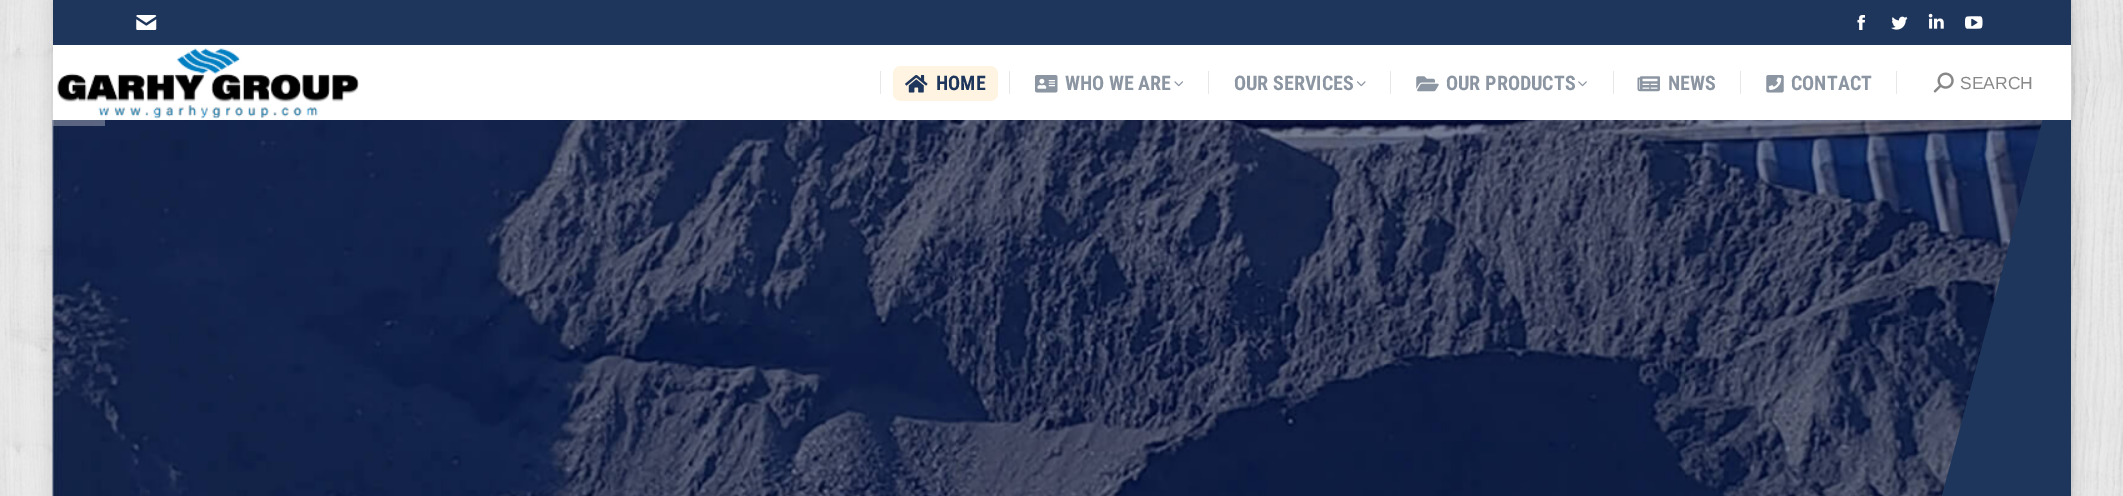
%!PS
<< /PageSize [2123 496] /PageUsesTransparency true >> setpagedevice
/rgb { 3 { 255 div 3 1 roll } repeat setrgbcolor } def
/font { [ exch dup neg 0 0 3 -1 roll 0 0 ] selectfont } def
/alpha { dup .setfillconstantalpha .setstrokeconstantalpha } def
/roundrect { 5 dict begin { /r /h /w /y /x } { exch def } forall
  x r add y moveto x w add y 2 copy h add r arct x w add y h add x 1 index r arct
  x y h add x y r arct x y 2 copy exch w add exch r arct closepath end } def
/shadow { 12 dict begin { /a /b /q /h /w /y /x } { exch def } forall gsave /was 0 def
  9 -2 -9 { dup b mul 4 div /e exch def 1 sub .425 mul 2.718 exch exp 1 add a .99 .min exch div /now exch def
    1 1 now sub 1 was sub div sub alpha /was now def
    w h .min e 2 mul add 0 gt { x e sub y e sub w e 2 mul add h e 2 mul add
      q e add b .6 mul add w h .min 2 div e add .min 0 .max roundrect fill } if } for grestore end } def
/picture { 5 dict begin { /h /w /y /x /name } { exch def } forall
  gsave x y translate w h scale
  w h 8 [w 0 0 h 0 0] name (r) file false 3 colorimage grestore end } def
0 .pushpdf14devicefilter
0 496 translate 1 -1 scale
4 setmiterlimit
255 255 255 rgb
0 0 2123 496 rectfill
(img/1.rgb) 0 0 2123 496 picture
0 0 0 rgb
53 0 2018 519 0 7.5 0.15 shadow
255 255 255 rgb
53 45 2018 75 rectfill
31 54 92 rgb
53 0 2018 45 rectfill
(img/2.rgb) 136 15 21 15 picture
(img/3.rgb) 1857 15 8 15 picture
(img/4.rgb) 1891 16 17 14 picture
(img/5.rgb) 1928 13 16 16 picture
(img/6.rgb) 1965 16 18 13 picture
(img/7.rgb) 57 48 302 71 picture
231 231 231 rgb
880 71 1 23 rectfill
255 244 225 rgb
893 66 105 35 8 roundrect fill
(img/8.rgb) 905 75 23 18 picture
231 231 231 rgb
1009 71 1 23 rectfill
(img/9.rgb) 1035 75 23 18 picture
(img/10.rgb) 1174 81 9 6 picture
1208 71 1 23 rectfill
(img/11.rgb) 1357 81 9 6 picture
1390 71 1 23 rectfill
(img/12.rgb) 1416 76 23 16 picture
(img/13.rgb) 1578 81 9 6 picture
1613 71 1 23 rectfill
(img/14.rgb) 1637 76 23 16 picture
1740 71 1 23 rectfill
(img/15.rgb) 1766 75 18 18 picture
1896 71 1 23 rectfill
(img/16.rgb) 1933 72 21 21 picture
31 54 92 rgb
2070 120 1 376 rectfill
(img/17.rgb) 52 120 1991 376 picture
gsave
53 120 2017 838 rectclip
2073 7 moveto 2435 104 lineto 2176 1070 lineto 1814 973 lineto closepath fill
grestore
0.3 alpha
255 255 255 rgb
53 120 52 6 rectfill
/RobotoCondensed-Bold 20 font
1 alpha
31 54 92 rgb
936 90 moveto (HOME) show
140 149 162 rgb
[
  [(WHO WE ARE) 1065 90]
  [(OUR SERVICES) 1234 90]
  [(OUR PRODUCTS) 1446 90]
  [(NEWS) 1668 90]
  [(CONTACT) 1791 90]
] { aload pop moveto show } forall
/LiberationSans-Regular 17.5 font
136 136 136 rgb
1960 89 moveto (SEARCH) show
.poppdf14devicefilter showpage
